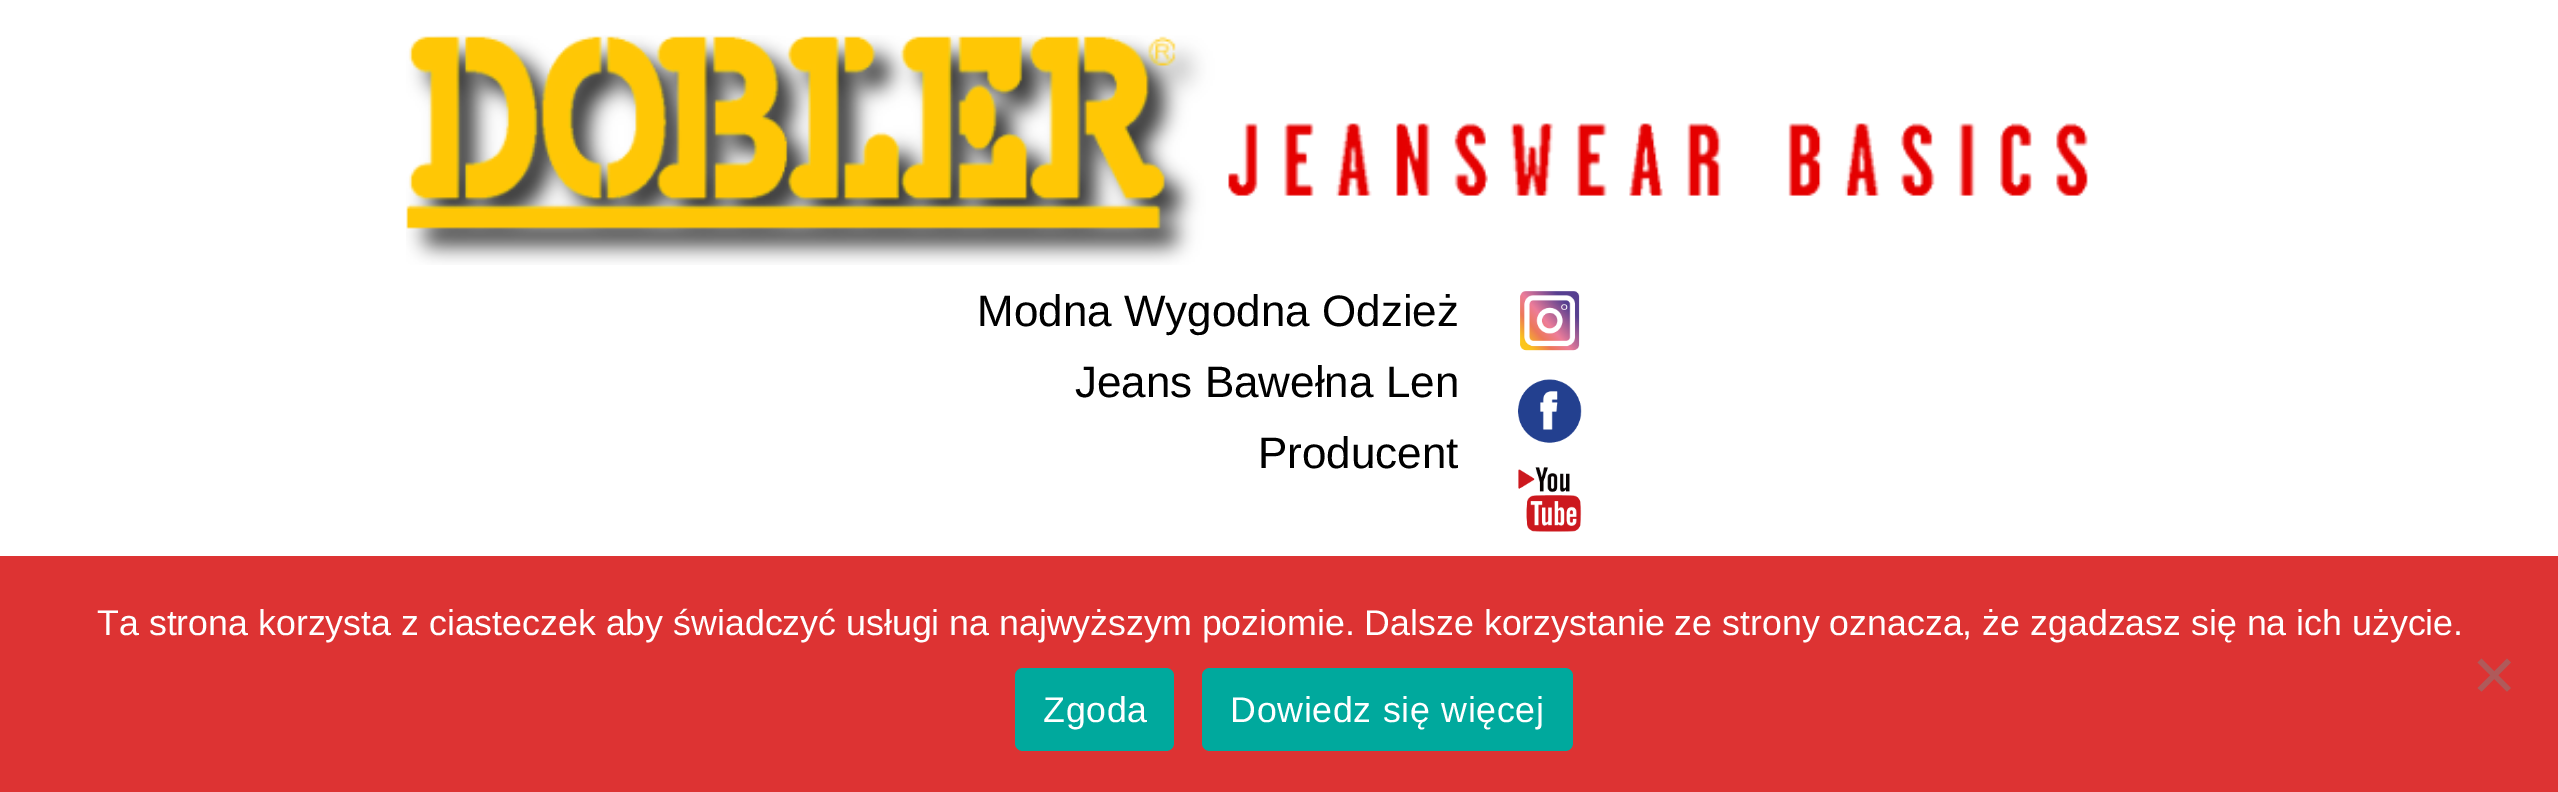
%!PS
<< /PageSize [2558 792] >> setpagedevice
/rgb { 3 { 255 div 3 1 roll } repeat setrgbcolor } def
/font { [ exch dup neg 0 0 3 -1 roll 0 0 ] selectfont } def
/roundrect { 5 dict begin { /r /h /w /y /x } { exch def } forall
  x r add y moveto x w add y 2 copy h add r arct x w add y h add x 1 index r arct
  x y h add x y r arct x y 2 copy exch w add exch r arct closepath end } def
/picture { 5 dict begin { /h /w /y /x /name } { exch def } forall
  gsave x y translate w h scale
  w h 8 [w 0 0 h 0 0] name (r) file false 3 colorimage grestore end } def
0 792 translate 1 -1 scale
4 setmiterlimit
255 255 255 rgb
0 0 2558 792 rectfill
(img/1.rgb) 406 35 1682 230 picture
(img/2.rgb) 1520 291 60 60 picture
(img/3.rgb) 1518 379 64 64 picture
(img/4.rgb) 1518 467 64 65 picture
221 51 51 rgb
0 556 2558 236 rectfill
175 90 90 rgb
2507 658.5 moveto 2511 662.5 lineto 2481.5 691.5 lineto 2477.5 688 lineto closepath fill
2477.5 662.5 moveto 2481.5 658.5 lineto 2511 688 lineto 2507 691.5 lineto closepath fill
0 169 157 rgb
1015 668 159 83 8 roundrect fill
1202 668 371 83 8 roundrect fill
/LiberationSans-Regular 44 font
0 0 0 rgb
[
  [(Modna Wygodna Odzież) 977 326]
  [(Jeans Bawełna Len) 1075 397]
  [(Producent) 1258 468]
] { aload pop moveto show } forall
/LiberationSans-Regular 35.75 font
255 255 255 rgb
97 635 moveto (Ta strona korzysta z ciasteczek aby świadczyć usługi na najwyższym poziomie. Dalsze korzystanie ze strony oznacza, że zgadzasz się na ich użycie.) show
1043 722 moveto 0.7 0 (Zgoda) ashow
1230 722 moveto 0.7 0 (Dowiedz się więcej) ashow
showpage
